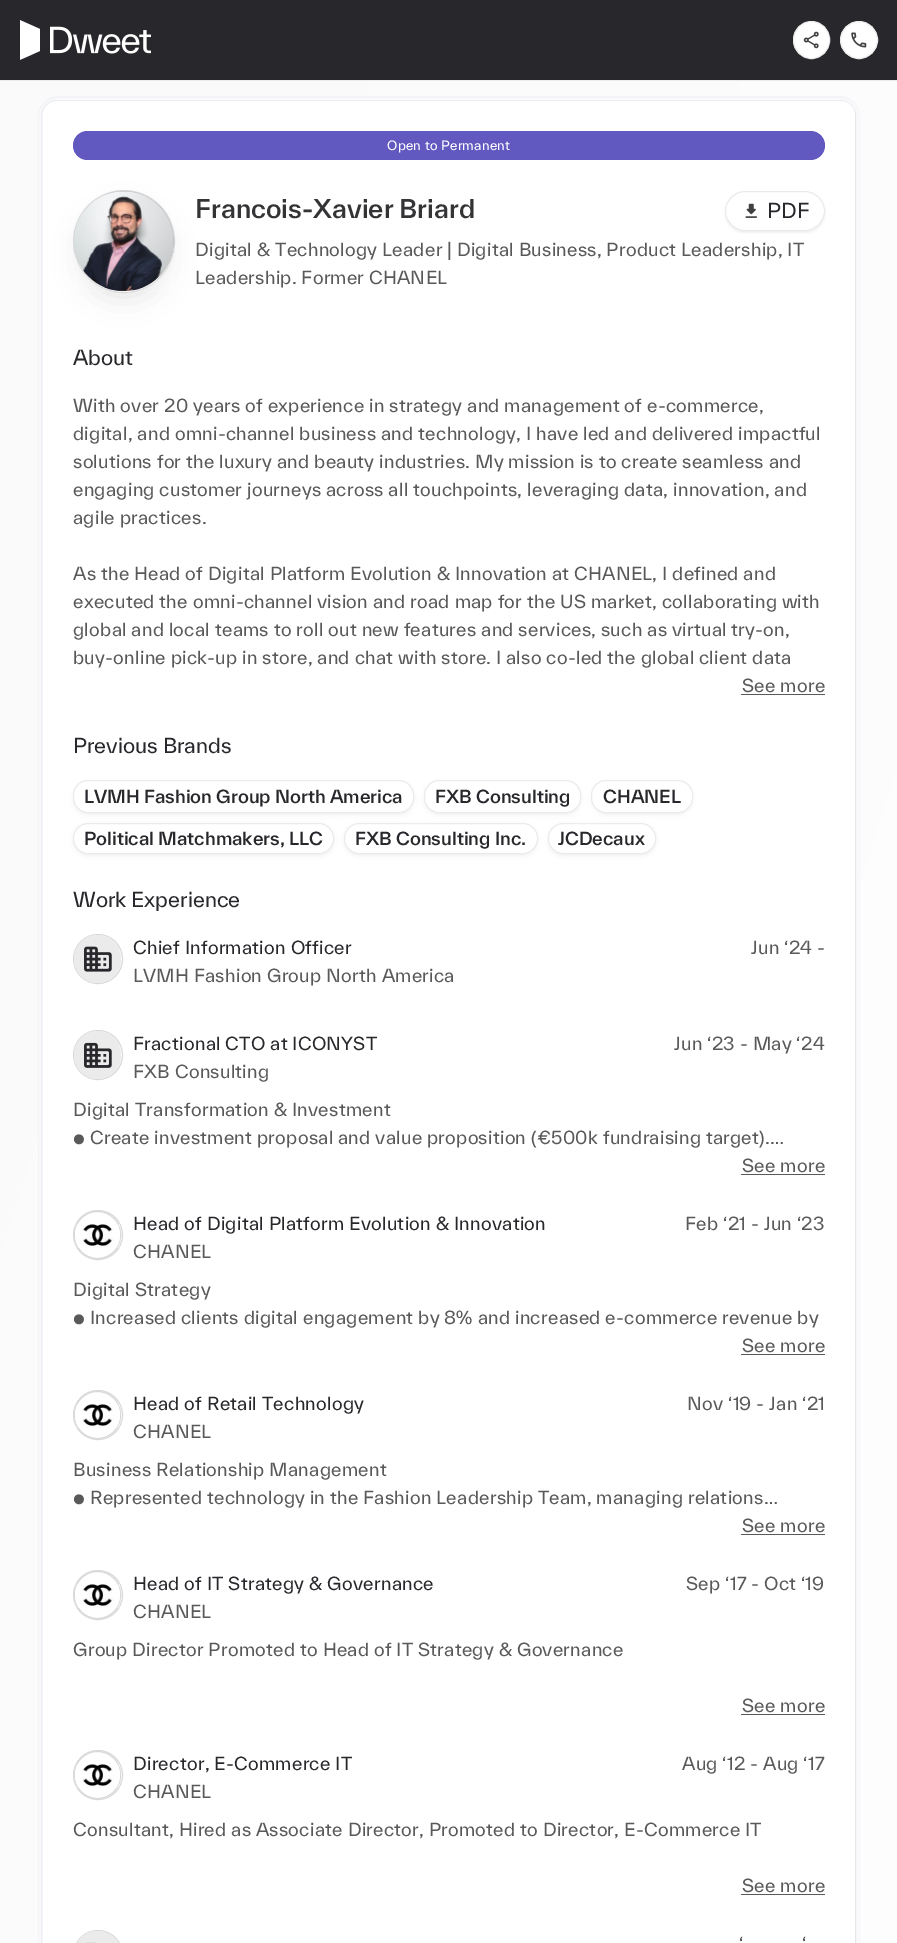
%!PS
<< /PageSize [897 1943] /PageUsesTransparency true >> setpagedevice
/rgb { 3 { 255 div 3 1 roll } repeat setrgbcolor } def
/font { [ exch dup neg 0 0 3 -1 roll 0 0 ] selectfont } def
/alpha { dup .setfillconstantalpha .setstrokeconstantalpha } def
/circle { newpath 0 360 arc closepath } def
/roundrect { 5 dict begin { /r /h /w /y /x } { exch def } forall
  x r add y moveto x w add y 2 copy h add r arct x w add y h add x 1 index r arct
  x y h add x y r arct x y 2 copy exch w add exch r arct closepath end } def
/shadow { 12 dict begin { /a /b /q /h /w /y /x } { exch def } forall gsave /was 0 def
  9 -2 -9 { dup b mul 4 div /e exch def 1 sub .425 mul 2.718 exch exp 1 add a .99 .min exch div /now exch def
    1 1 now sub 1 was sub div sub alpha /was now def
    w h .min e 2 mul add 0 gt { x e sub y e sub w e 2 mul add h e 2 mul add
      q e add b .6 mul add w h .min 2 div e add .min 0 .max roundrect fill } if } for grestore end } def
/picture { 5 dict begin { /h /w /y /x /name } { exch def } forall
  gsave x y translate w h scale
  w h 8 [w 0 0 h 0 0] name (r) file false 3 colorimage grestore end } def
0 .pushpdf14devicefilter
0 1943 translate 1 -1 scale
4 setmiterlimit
255 255 255 rgb
0 0 897 1943 rectfill
40 40 44 rgb
0 0 897 80 rectfill
(img/1.rgb) 20 20 131 40 picture
255 255 255 rgb
793.5 21.5 36 37 18 roundrect gsave fill grestore
235 235 235 rgb
stroke
(img/2.rgb) 803 31 16 18 picture
255 255 255 rgb
859 40 18.5 circle gsave fill grestore
235 235 235 rgb
stroke
(img/3.rgb) 851 32 16 16 picture
0 80 897 1 rectfill
gsave 0 81 moveto 897 81 lineto 897 1943 lineto 0 1943 lineto closepath clip newpath
<< /ShadingType 2 /ColorSpace /DeviceRGB /Coords [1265 1760 -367 1245] /Extend [true true] /Function << /FunctionType 2 /Domain [0 1] /C0 [1 1 1] /C1 [0.98 0.98 0.98] /N 1 >> >> shfill grestore
243 244 247 rgb
5 setlinewidth
40.5 98.5 817 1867 17.5 roundrect stroke
249 249 251 rgb
4 setlinewidth
41 100 817 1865 18 roundrect stroke
0.6 alpha
228 229 233 rgb
1 setlinewidth
41.5 100.5 814 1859 15.5 roundrect stroke
1 alpha
0.6 setlinewidth
43.3 101.3 812.4 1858.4 15.7 roundrect stroke
255 255 255 rgb
58 101 moveto 840 101 lineto 848.5 101 855 107.5 855 116 curveto 855 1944 lineto 43 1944 lineto 43 116 lineto 43 107.5 49.5 101 58 101 curveto closepath fill
98 89 192 rgb
73 131 752 29 14.5 roundrect fill
10 9 11 rgb
84 215 80 80 40 15 0.14 shadow
217 217 217 rgb
1 setlinewidth
73.5 190.5 101 102 50.5 roundrect stroke
173 173 173 rgb
124 241 50 circle fill
(img/4.rgb) 74 191 100 101 picture
0 0 0 rgb
725 193 100 40 20 1 0.05 shadow
255 255 255 rgb
725.5 191.5 99 39 19.5 roundrect gsave fill grestore
235 235 235 rgb
stroke
(img/5.rgb) 745 203 12 15 picture
89 89 89 rgb
741 694 84 1 rectfill
10 9 11 rgb
74 784 339 30 14 2.5 0.07 shadow
255 255 255 rgb
73.5 780.5 340 32 14.5 roundrect gsave fill grestore
235 235 235 rgb
stroke
10 9 11 rgb
425 784 155 30 14 2.5 0.07 shadow
255 255 255 rgb
424.5 780.5 156 32 14.5 roundrect gsave fill grestore
235 235 235 rgb
stroke
10 9 11 rgb
593 784 98 30 14 2.5 0.07 shadow
255 255 255 rgb
591.5 780.5 101 32 14.5 roundrect gsave fill grestore
235 235 235 rgb
stroke
10 9 11 rgb
74 826 259 29 14 2.5 0.07 shadow
255 255 255 rgb
73.5 823.5 260 30 14.5 roundrect gsave fill grestore
235 235 235 rgb
stroke
10 9 11 rgb
345 826 191 29 14 2.5 0.07 shadow
255 255 255 rgb
344.5 823.5 193 30 14.5 roundrect gsave fill grestore
235 235 235 rgb
stroke
10 9 11 rgb
549 826 106 29 14 2.5 0.07 shadow
255 255 255 rgb
548.5 823.5 107 30 14.5 roundrect gsave fill grestore
235 235 235 rgb
stroke
217 217 217 rgb
98 959 24.5 circle stroke
235 235 235 rgb
74 935 47 48 23.5 roundrect fill
(img/6.rgb) 84 946 28 26 picture
217 217 217 rgb
98 1055 24.5 circle stroke
235 235 235 rgb
74 1031 47 48 23.5 roundrect fill
(img/7.rgb) 84 1042 28 26 picture
89 89 89 rgb
741 1174 84 1 rectfill
217 217 217 rgb
98 1235 24.5 circle stroke
74.5 1211.5 46 47 23 roundrect stroke
(img/8.rgb) 75 1224 45 24 picture
89 89 89 rgb
741 1354 84 1 rectfill
217 217 217 rgb
98 1415 24.5 circle stroke
74.5 1391.5 46 47 23 roundrect stroke
(img/8.rgb) 75 1404 45 24 picture
89 89 89 rgb
741 1534 84 1 rectfill
217 217 217 rgb
98 1595 24.5 circle stroke
74.5 1571.5 46 47 23 roundrect stroke
(img/8.rgb) 75 1584 45 24 picture
89 89 89 rgb
741 1714 84 1 rectfill
217 217 217 rgb
98 1775 24.5 circle stroke
74.5 1751.5 46 47 23 roundrect stroke
(img/9.rgb) 75 1764 45 24 picture
89 89 89 rgb
741 1894 84 1 rectfill
217 217 217 rgb
73.5 1930.5 49 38 24.5 roundrect stroke
235 235 235 rgb
97.5 1931 moveto 110.5 1931 121 1941.5 121 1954.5 curveto 121 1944 lineto 74 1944 lineto 74 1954.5 lineto 74 1941.5 84.5 1931 97.5 1931 curveto closepath fill
(img/10.rgb) 86 1942 10 1 picture
/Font-Regular 12.5 font
255 255 255 rgb
387 150 moveto 0.25 0 (Open to Permanent) ashow
/Font-Medium 25 font
52 52 54 rgb
195 218 moveto (Francois-Xavier Briard) show
/Font-Regular 20 font
40 40 44 rgb
767 218 moveto (PDF) show
/Font-Regular 17.5 font
89 89 89 rgb
195 256 moveto 0.28 0 (Digital & Technology Leader | Digital Business, Product Leadership, IT) ashow
195 284 moveto 0.28 0 (Leadership. Former CHANEL) ashow
/Font-Regular 20 font
40 40 44 rgb
73 365 moveto (About) show
/Font-Regular 17.5 font
89 89 89 rgb
73 412 moveto 0.28 0 (With over 20 years of experience in strategy and management of e-commerce,) ashow
73 440 moveto 0.28 0 (digital, and omni-channel business and technology, I have led and delivered impactful) ashow
73 468 moveto 0.28 0 (solutions for the luxury and beauty industries. My mission is to create seamless and) ashow
73 496 moveto 0.28 0 (engaging customer journeys across all touchpoints, leveraging data, innovation, and) ashow
73 524 moveto 0.28 0 (agile practices.) ashow
73 580 moveto 0.28 0 (As the Head of Digital Platform Evolution & Innovation at CHANEL, I defined and) ashow
73 608 moveto 0.28 0 (executed the omni-channel vision and road map for the US market, collaborating with) ashow
73 636 moveto 0.28 0 (global and local teams to roll out new features and services, such as virtual try-on,) ashow
73 664 moveto 0.28 0 (buy-online pick-up in store, and chat with store. I also co-led the global client data) ashow
742 692 moveto 0.28 0 (See more) ashow
/Font-Regular 20 font
40 40 44 rgb
73 753 moveto (Previous Brands) show
/Font-Medium 17.5 font
[
  [(LVMH Fashion Group North America) 84 803]
  [(FXB Consulting) 435 803]
  [(CHANEL) 603 803]
  [(Political Matchmakers, LLC) 84 845]
  [(FXB Consulting Inc.) 355 845]
  [(JCDecaux) 558 845]
] { aload pop moveto show } forall
/Font-Regular 20 font
73 907 moveto (Work Experience) show
/Font-Regular 17.5 font
133 954 moveto 0.28 0 (Chief Information Officer) ashow
89 89 89 rgb
751 954 moveto 0.28 0 (Jun ‘24 -) ashow
133 982 moveto 0.28 0 (LVMH Fashion Group North America) ashow
40 40 44 rgb
133 1050 moveto 0.28 0 (Fractional CTO at ICONYST) ashow
89 89 89 rgb
674 1050 moveto 0.28 0 (Jun ‘23 - May ‘24) ashow
133 1078 moveto 0.28 0 (FXB Consulting) ashow
73 1116 moveto 0.28 0 (Digital Transformation & Investment) ashow
73 1144 moveto 0.28 0 (● Create investment proposal and value proposition \(€500k fundraising target\).…) ashow
742 1172 moveto 0.28 0 (See more) ashow
40 40 44 rgb
133 1230 moveto 0.28 0 (Head of Digital Platform Evolution & Innovation) ashow
89 89 89 rgb
685 1230 moveto 0.28 0 (Feb ‘21 - Jun ‘23) ashow
133 1258 moveto 0.28 0 (CHANEL) ashow
73 1296 moveto 0.28 0 (Digital Strategy) ashow
73 1324 moveto 0.28 0 (● Increased clients digital engagement by 8% and increased e-commerce revenue by) ashow
742 1352 moveto 0.28 0 (See more) ashow
40 40 44 rgb
133 1410 moveto 0.28 0 (Head of Retail Technology) ashow
89 89 89 rgb
687 1410 moveto 0.28 0 (Nov ‘19 - Jan ‘21) ashow
133 1438 moveto 0.28 0 (CHANEL) ashow
73 1476 moveto 0.28 0 (Business Relationship Management) ashow
73 1504 moveto 0.28 0 (● Represented technology in the Fashion Leadership Team, managing relations…) ashow
742 1532 moveto 0.28 0 (See more) ashow
40 40 44 rgb
133 1590 moveto 0.28 0 (Head of IT Strategy & Governance) ashow
89 89 89 rgb
686 1590 moveto 0.28 0 (Sep ‘17 - Oct ‘19) ashow
133 1618 moveto 0.28 0 (CHANEL) ashow
73 1656 moveto 0.28 0 (Group Director Promoted to Head of IT Strategy & Governance) ashow
742 1712 moveto 0.28 0 (See more) ashow
40 40 44 rgb
133 1770 moveto 0.28 0 (Director, E-Commerce IT) ashow
89 89 89 rgb
682 1770 moveto 0.28 0 (Aug ‘12 - Aug ‘17) ashow
133 1798 moveto 0.28 0 (CHANEL) ashow
73 1836 moveto 0.28 0 (Consultant, Hired as Associate Director, Promoted to Director, E-Commerce IT) ashow
742 1892 moveto 0.28 0 (See more) ashow
739 1950 moveto 0.28 0 (‘) ashow
802 1950 moveto 0.28 0 (‘) ashow
.poppdf14devicefilter showpage
